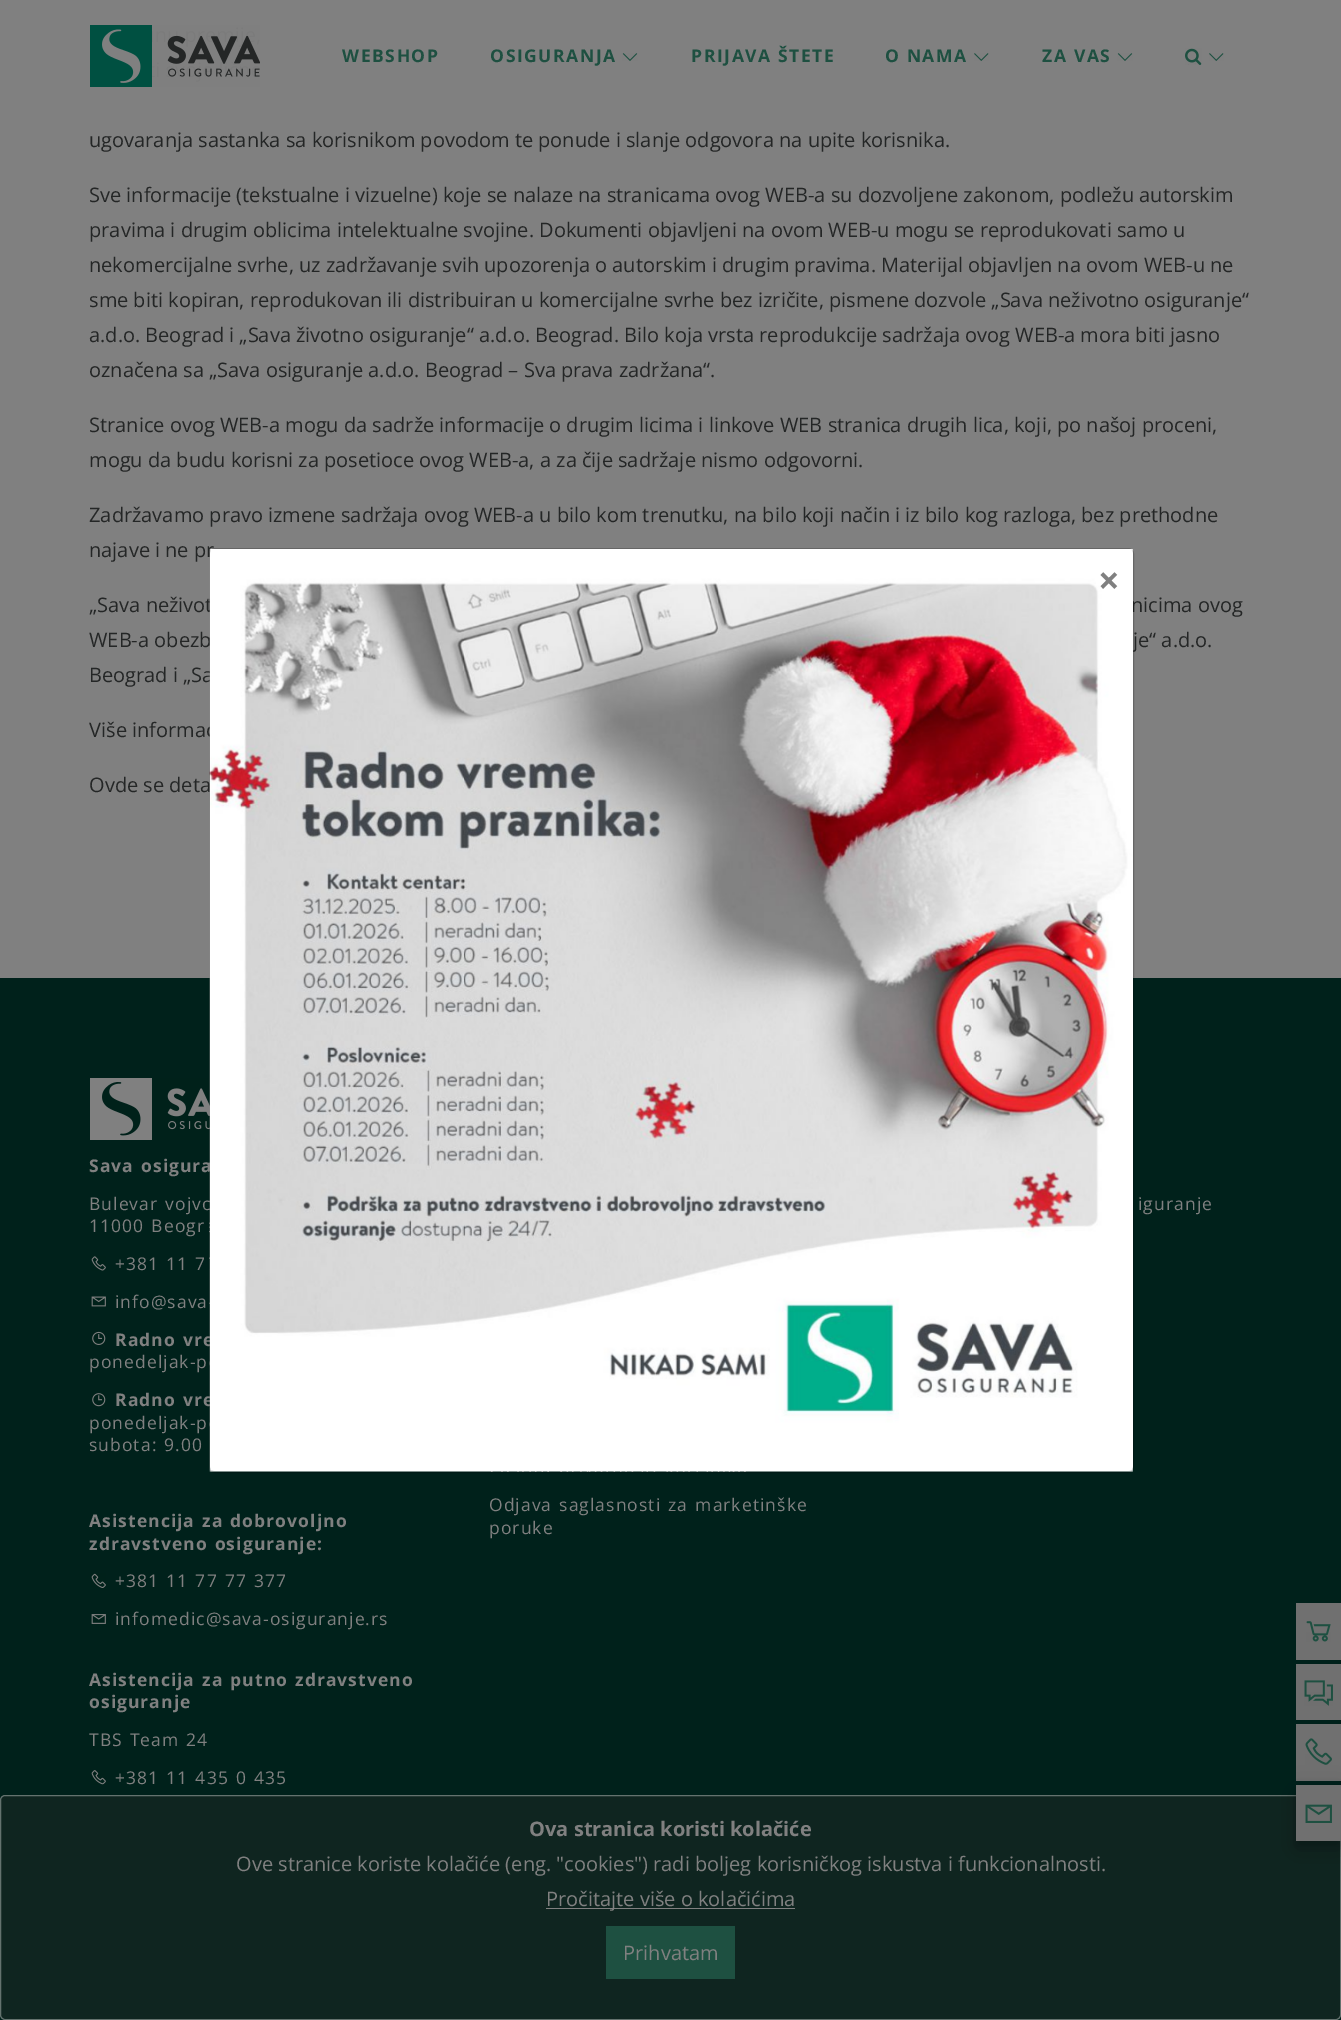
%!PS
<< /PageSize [1341 2020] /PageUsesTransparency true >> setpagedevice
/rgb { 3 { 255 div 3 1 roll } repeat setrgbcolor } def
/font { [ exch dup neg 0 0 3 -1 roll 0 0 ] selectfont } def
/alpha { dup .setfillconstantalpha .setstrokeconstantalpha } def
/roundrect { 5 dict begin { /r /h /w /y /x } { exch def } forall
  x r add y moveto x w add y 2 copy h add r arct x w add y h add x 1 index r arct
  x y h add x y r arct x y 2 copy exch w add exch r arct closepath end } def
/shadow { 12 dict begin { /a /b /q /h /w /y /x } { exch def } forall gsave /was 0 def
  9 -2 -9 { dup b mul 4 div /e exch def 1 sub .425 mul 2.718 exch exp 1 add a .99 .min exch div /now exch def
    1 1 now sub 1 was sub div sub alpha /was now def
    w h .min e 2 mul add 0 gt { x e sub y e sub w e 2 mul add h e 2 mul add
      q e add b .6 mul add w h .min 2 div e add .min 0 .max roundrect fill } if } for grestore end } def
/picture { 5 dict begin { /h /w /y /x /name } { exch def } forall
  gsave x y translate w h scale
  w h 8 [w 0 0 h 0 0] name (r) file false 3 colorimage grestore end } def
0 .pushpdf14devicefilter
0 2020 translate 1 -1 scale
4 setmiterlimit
128 128 128 rgb
0 0 1341 2020 rectfill
(img/1.rgb) 90 25 170 62 picture
(img/2.rgb) 622 53 16 8 picture
(img/3.rgb) 974 53 15 8 picture
(img/2.rgb) 1117 53 16 8 picture
(img/4.rgb) 1185 48 17 17 picture
(img/3.rgb) 1209 53 15 8 picture
0 33 27 rgb
0 978 1341 1042 rectfill
(img/6.rgb) 90 1078 121 62 picture
(img/7.rgb) 91 1256 15 15 picture
(img/8.rgb) 91 1296 15 11 picture
(img/9.rgb) 92 1331 14 14 picture
(img/10.rgb) 92 1393 14 14 picture
(img/11.rgb) 91 1573 15 15 picture
(img/12.rgb) 91 1614 15 10 picture
(img/13.rgb) 91 1770 15 15 picture
112 112 112 rgb
1296 1603 45 57 rectfill
(img/14.rgb) 1306 1621 25 21 picture
1296 1664 45 56 rectfill
(img/15.rgb) 1304 1680 29 26 picture
1296 1724 45 57 rectfill
15 37 32 rgb
0.5 1795.5 1340 224 4.5 roundrect gsave fill grestore
100 114 110 rgb
stroke
0 0 0 rgb
1296 1793 45 56 0 12.5 0.2 shadow
(img/16.rgb) 1305 1738 27 27 picture
1296 1790 45 56 0 5 0.2 shadow
112 112 112 rgb
1296 1785 45 56 rectfill
(img/17.rgb) 1305 1804 27 19 picture
128 128 128 rgb
546 1908 249 1 rectfill
30 80 65 rgb
606 1926 129 53 rectfill
/OpenSans-Bold 17.5 font
342 62 moveto 1.6 0 (WEBSHOP) ashow
490 62 moveto 1.6 0 (OSIGURANJA) ashow
691 62 moveto 1.6 0 (PRIJAVA ŠTETE) ashow
885 62 moveto 1.6 0 (O NAMA) ashow
1042 62 moveto 1.6 0 (ZA VAS) ashow
/OpenSans-Regular 20 font
36 38 38 rgb
[
  [(ugovaranja sastanka sa korisnikom povodom te ponude i slanje odgovora na upite korisnika.) 89 147]
  [(Sve informacije \(tekstualne i vizuelne\) koje se nalaze na stranicama ovog WEB-a su dozvoljene zakonom, podležu autorskim) 89 202]
  [(pravima i drugim oblicima intelektualne svojine. Dokumenti objavljeni na ovom WEB-u mogu se reprodukovati samo u) 89 237]
  [(nekomercijalne svrhe, uz zadržavanje svih upozorenja o autorskim i drugim pravima. Materijal objavljen na ovom WEB-u ne) 89 272]
  [(sme biti kopiran, reprodukovan ili distribuiran u komercijalne svrhe bez izričite, pismene dozvole „Sava neživotno osiguranje“) 89 307]
  [(a.d.o. Beograd i „Sava životno osiguranje“ a.d.o. Beograd. Bilo koja vrsta reprodukcije sadržaja ovog WEB-a mora biti jasno) 89 342]
  [(označena sa „Sava osiguranje a.d.o. Beograd – Sva prava zadržana“.) 89 377]
  [(Stranice ovog WEB-a mogu da sadrže informacije o drugim licima i linkove WEB stranica drugih lica, koji, po našoj proceni,) 89 432]
  [(mogu da budu korisni za posetioce ovog WEB-a, a za čije sadržaje nismo odgovorni.) 89 467]
  [(Zadržavamo pravo izmene sadržaja ovog WEB-a u bilo kom trenutku, na bilo koji način i iz bilo kog razloga, bez prethodne) 89 522]
  [(najave i ne pr) 89 557]
  [(„Sava neživot) 89 612]
  [(nicima ovog) 1131 612]
  [(WEB-a obezb) 89 647]
  [(je“ a.d.o.) 1133 647]
  [(Beograd i „Sa) 89 682]
  [(Više informac) 89 737]
  [(Ovde se deta) 89 792]
] { aload pop moveto show } forall
/OpenSans-Bold 17.5 font
128 128 128 rgb
89 1172 moveto 1.5 0 32 1.05 0 (Sava osigura) awidthshow
/OpenSans-Regular 17.5 font
89 1210 moveto 1.5 0 32 1.05 0 (Bulevar vojvo) awidthshow
89 1232 moveto 1.5 0 32 1.05 0 (11000 Beogr) awidthshow
115 1270 moveto 1.5 0 32 1.05 0 (+381 11 7) awidthshow
115 1308 moveto 1.05 0 (info@sava) ashow
/OpenSans-Bold 17.5 font
115 1346 moveto 1.5 0 32 1.05 0 (Radno vre) awidthshow
/OpenSans-Regular 17.5 font
89 1368 moveto 1.05 0 (ponedeljak-p) ashow
/OpenSans-Bold 17.5 font
115 1406 moveto 1.5 0 32 1.05 0 (Radno vre) awidthshow
0.2 alpha
0 0 0 rgb
209.5 548.5 924 924 5.5 roundrect stroke
1 alpha
(img/5.rgb) 209 549 924 923 picture
/OpenSans-Bold 38 font
128 128 128 rgb
1098 594 moveto (×) show
/OpenSans-Regular 17.5 font
89 1429 moveto 1.05 0 (ponedeljak-p) ashow
89 1451 moveto 1.5 0 32 1.05 0 (subota: 9.00) awidthshow
/OpenSans-Bold 17.5 font
89 1527 moveto 1.5 0 32 1.05 0 (Asistencija za dobrovoljno) awidthshow
89 1550 moveto 1.5 0 32 1.05 0 (zdravstveno osiguranje:) awidthshow
/OpenSans-Regular 17.5 font
115 1587 moveto 1.5 0 32 1.05 0 (+381 11 77 77 377) awidthshow
115 1625 moveto 1.05 0 (infomedic@sava-osiguranje.rs) ashow
/OpenSans-Bold 17.5 font
89 1686 moveto 1.5 0 32 1.05 0 (Asistencija za putno zdravstveno) awidthshow
89 1708 moveto 1.05 0 (osiguranje) ashow
/OpenSans-Regular 17.5 font
89 1746 moveto 1.5 0 32 1.05 0 (TBS Team 24) awidthshow
115 1784 moveto 1.5 0 32 1.05 0 (+381 11 435 0 435) awidthshow
1138 1210 moveto 1.5 0 32 1.05 0 (iguranje) awidthshow
489 1511 moveto 1.5 0 32 1.05 0 (Odjava saglasnosti za marketinške) awidthshow
489 1534 moveto 1.05 0 (poruke) ashow
/OpenSans-Bold 20 font
529 1836 moveto (Ova stranica koristi kolačiće) show
/OpenSans-Regular 20 font
[
  [(Ove stranice koriste kolačiće \(eng. "cookies"\) radi boljeg korisničkog iskustva i funkcionalnosti.) 236 1871]
  [(Pročitajte više o kolačićima) 546 1906]
  [(Prihvatam) 623 1960]
] { aload pop moveto show } forall
.poppdf14devicefilter showpage
